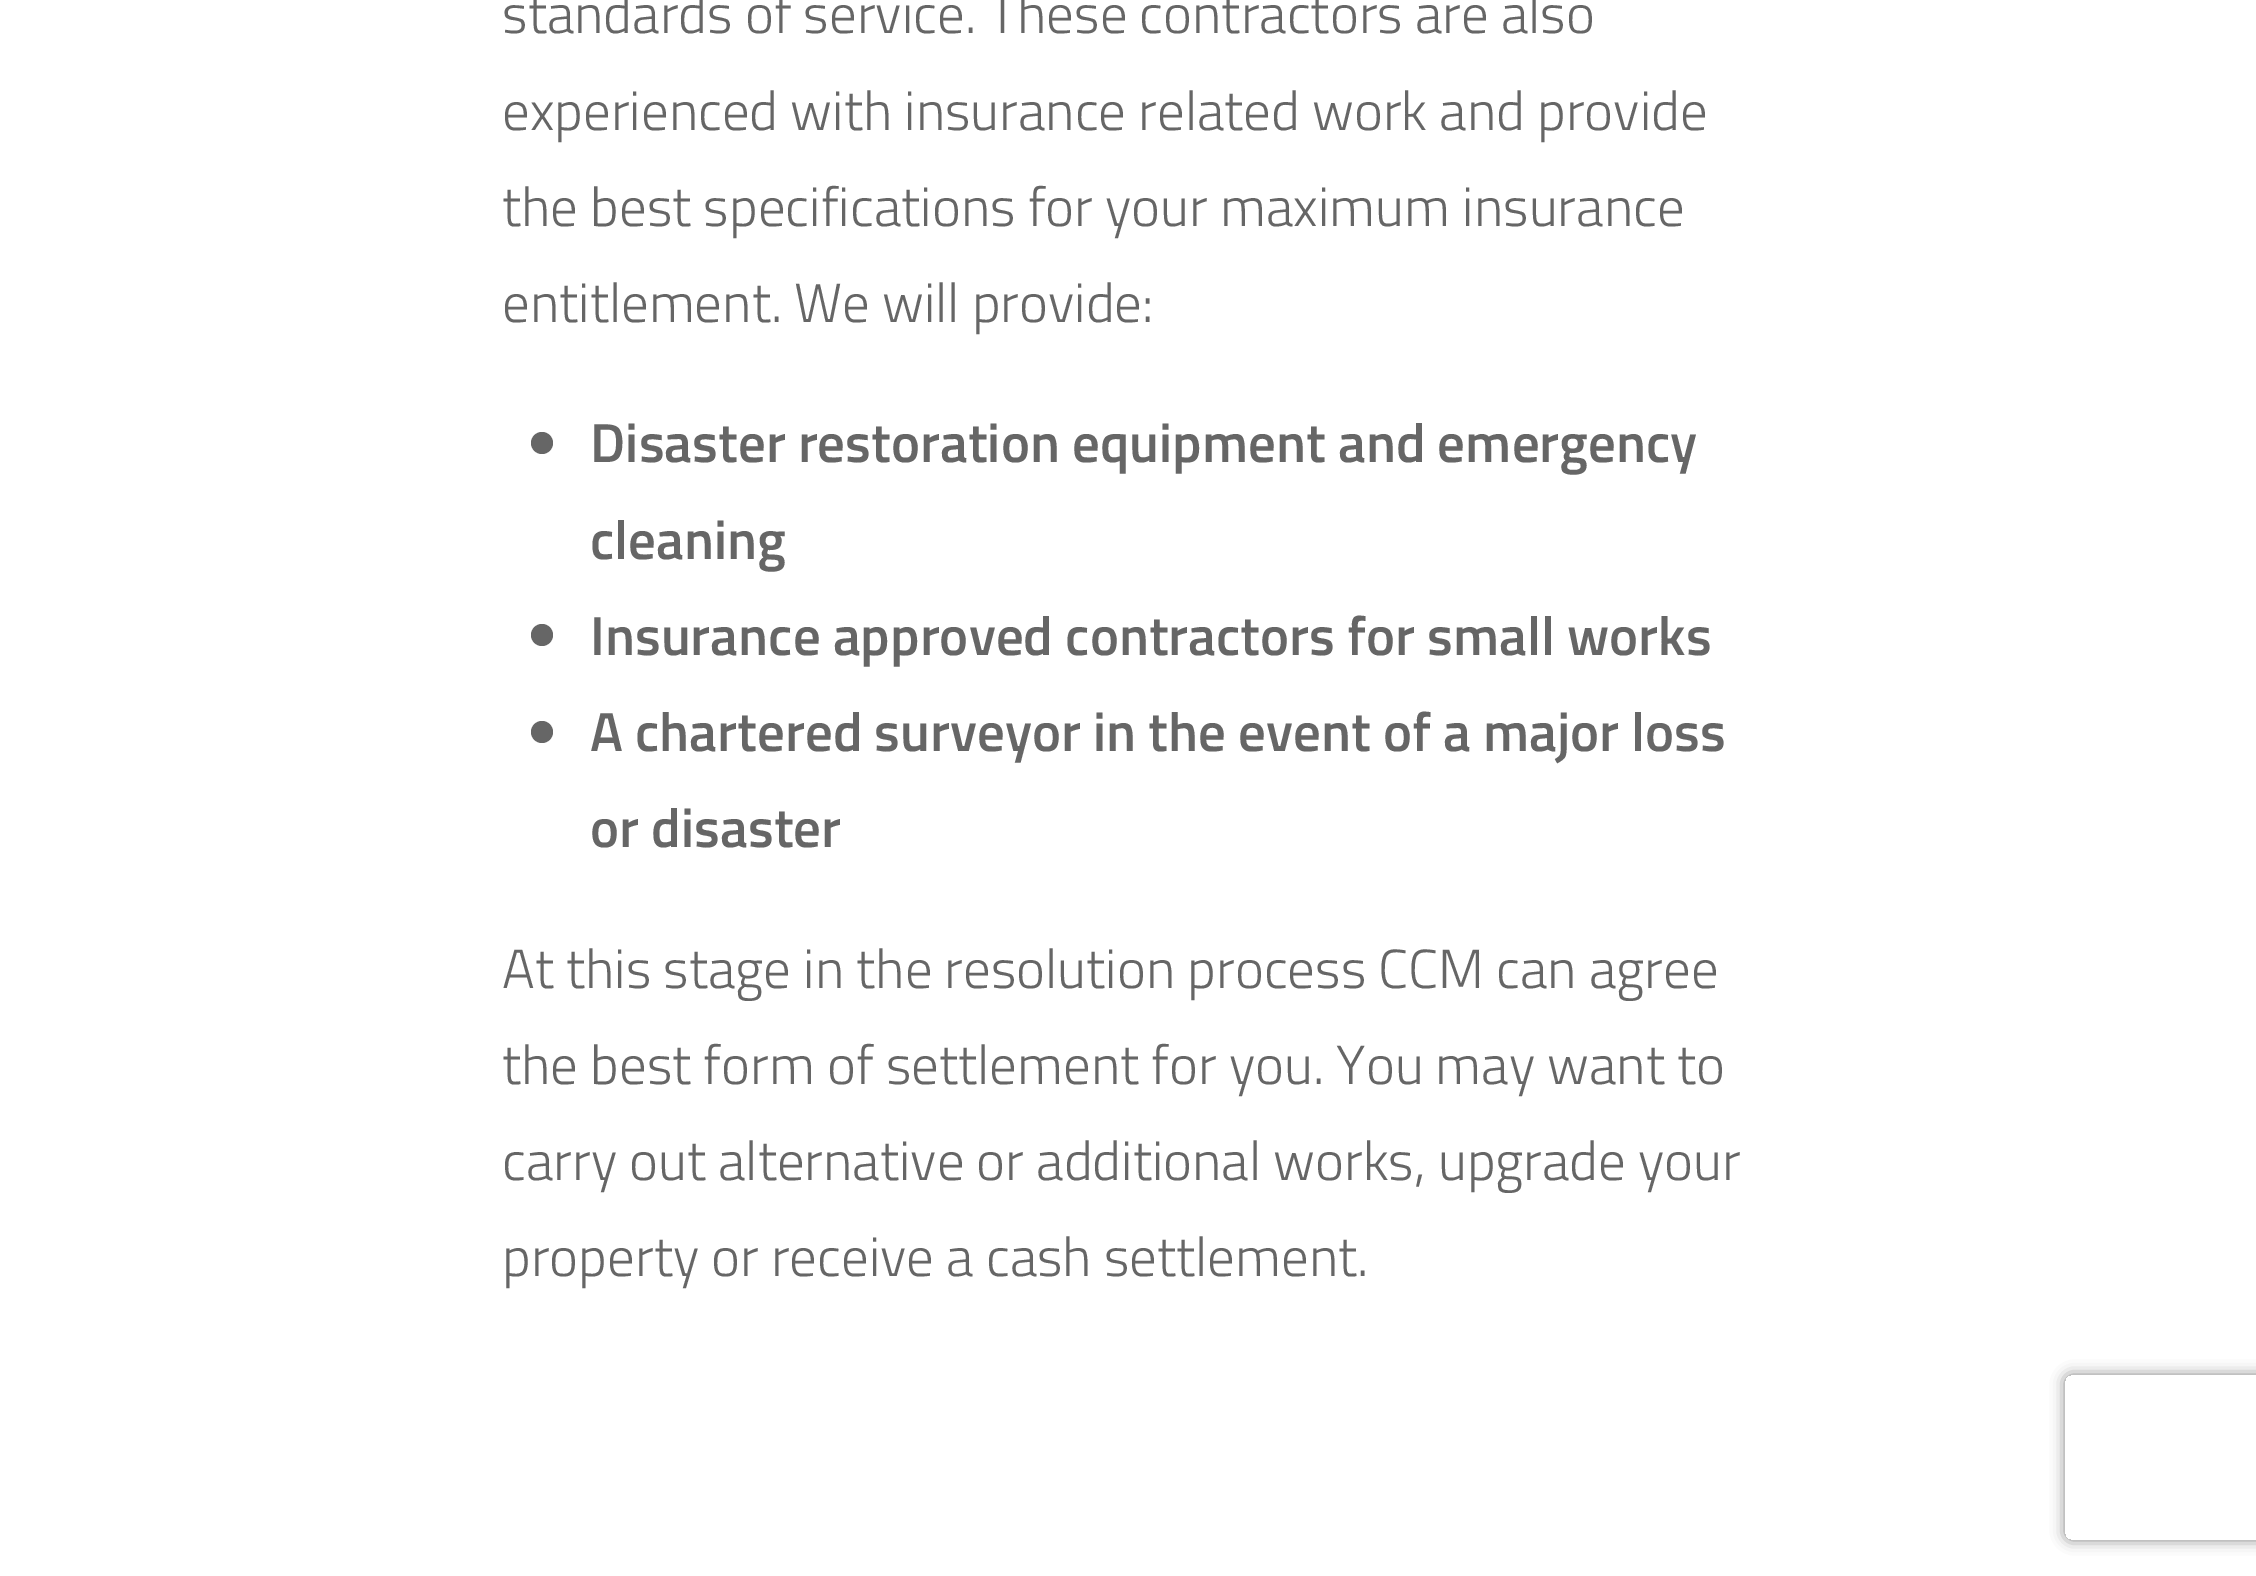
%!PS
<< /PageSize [2256 1576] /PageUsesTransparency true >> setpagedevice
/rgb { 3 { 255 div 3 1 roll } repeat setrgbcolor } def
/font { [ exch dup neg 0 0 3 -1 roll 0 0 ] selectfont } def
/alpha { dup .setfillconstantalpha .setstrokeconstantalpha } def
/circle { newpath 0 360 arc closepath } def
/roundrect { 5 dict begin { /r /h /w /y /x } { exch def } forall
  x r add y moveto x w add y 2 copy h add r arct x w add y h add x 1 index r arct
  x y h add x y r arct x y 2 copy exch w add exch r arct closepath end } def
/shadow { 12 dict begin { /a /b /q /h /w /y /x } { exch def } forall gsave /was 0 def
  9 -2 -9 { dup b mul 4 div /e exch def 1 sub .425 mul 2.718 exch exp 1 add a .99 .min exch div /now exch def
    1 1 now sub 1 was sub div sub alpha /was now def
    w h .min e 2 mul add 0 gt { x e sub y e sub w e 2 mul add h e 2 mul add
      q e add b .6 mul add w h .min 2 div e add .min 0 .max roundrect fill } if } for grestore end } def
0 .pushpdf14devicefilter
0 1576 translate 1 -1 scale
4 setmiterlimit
255 255 255 rgb
0 0 2256 1576 rectfill
102 102 102 rgb
542 443 11 circle fill
542 635 11 circle fill
542 732 11 circle fill
gsave
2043 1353 moveto 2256 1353 lineto 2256 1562 lineto 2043 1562 lineto closepath 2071 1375 moveto 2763 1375 lineto 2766.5 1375 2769 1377.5 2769 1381 curveto 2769 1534 lineto 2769 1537.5 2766.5 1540 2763 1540 curveto 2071 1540 lineto 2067.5 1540 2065 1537.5 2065 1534 curveto 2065 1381 lineto 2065 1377.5 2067.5 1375 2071 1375 curveto closepath eoclip newpath
128 128 128 rgb
2065 1375 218 165 6 7 1 shadow
grestore
/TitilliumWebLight-Light 55 font
[
  [(standards of service. These contractors are also) 502 33]
  [(experienced with insurance related work and provide) 502 130]
  [(the best specifications for your maximum insurance) 502 226]
  [(entitlement. We will provide:) 502 322]
] { aload pop moveto show } forall
/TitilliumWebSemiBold-SemiBold 55 font
[
  [(Disaster restoration equipment and emergency) 590 462]
  [(cleaning) 590 559]
  [(Insurance approved contractors for small works) 590 655]
  [(A chartered surveyor in the event of a major loss) 590 751]
  [(or disaster) 590 847]
] { aload pop moveto show } forall
/TitilliumWebLight-Light 55 font
[
  [(At this stage in the resolution process CCM can agree) 502 988]
  [(the best form of settlement for you. You may want to) 502 1084]
  [(carry out alternative or additional works, upgrade your) 502 1180]
  [(property or receive a cash settlement.) 502 1276]
] { aload pop moveto show } forall
.poppdf14devicefilter showpage
